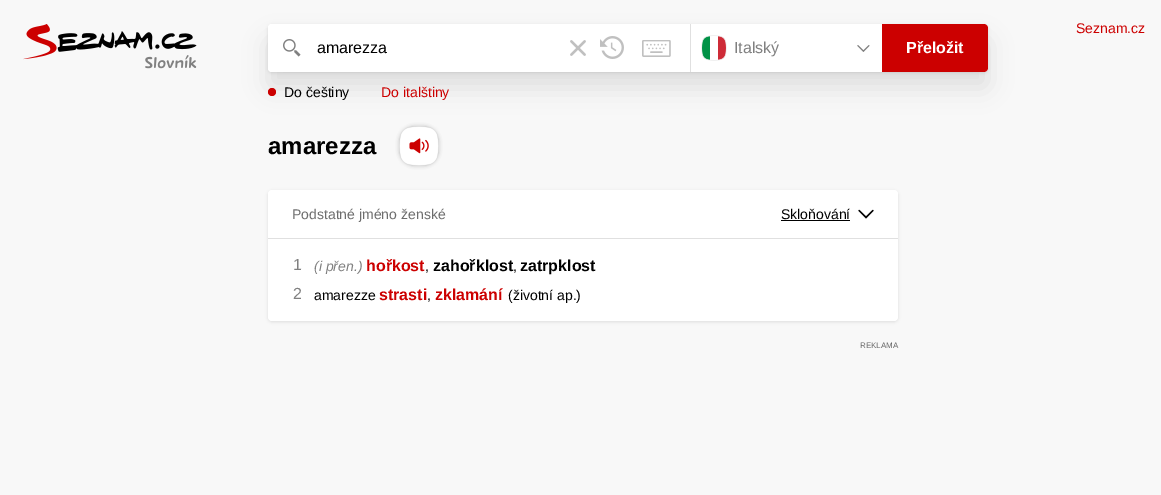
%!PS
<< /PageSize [1161 495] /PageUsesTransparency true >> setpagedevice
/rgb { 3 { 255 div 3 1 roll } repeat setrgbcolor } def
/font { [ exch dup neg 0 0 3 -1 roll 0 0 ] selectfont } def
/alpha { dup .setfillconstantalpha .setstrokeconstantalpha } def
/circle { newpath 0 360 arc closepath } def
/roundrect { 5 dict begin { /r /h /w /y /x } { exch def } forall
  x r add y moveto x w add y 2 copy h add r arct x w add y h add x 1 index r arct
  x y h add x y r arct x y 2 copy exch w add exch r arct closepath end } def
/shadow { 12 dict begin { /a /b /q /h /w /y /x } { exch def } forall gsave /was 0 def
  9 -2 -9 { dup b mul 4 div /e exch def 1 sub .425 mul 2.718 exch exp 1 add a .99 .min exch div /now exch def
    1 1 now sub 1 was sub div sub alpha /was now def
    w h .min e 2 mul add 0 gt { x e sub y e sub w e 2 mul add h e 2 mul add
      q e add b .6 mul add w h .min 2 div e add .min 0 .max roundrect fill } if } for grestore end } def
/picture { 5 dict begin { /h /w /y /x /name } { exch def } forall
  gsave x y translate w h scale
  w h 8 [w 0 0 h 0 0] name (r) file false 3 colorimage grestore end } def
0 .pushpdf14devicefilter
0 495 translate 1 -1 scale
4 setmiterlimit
248 248 248 rgb
0 0 1161 495 rectfill
(img/1.rgb) 23 24 174 45 picture
0 0 0 rgb
268 25 720 48 4 1.5 0.1 shadow
268 40 720 48 4 12 0.1 shadow
255 255 255 rgb
268 24 720 48 4 roundrect fill
268 24 48 48 4 roundrect fill
(img/2.rgb) 283 39 18 18 picture
(img/3.rgb) 570 40 16 16 picture
(img/4.rgb) 600 36 24 23 picture
(img/5.rgb) 642 40 29 17 picture
224 224 224 rgb
690 24 1 48 rectfill
(img/6.rgb) 701 35 26 26 picture
(img/7.rgb) 857 45 13 7 picture
204 0 0 rgb
882 24 moveto 984 24 lineto 986 24 988 26 988 28 curveto 988 68 lineto 988 70 986 72 984 72 curveto 882 72 lineto closepath fill
272 92 4 circle fill
128 128 128 rgb
401 128 36 36 13 2.5 1 shadow
(img/8.rgb) 399 126 40 40 picture
0 0 0 rgb
268 191 630 131 4 1.5 0.1 shadow
255 255 255 rgb
268 190 630 131 4 roundrect fill
224 224 224 rgb
268 238 630 1 rectfill
0 0 0 rgb
781 220 69 1 rectfill
(img/9.rgb) 858 209 16 10 picture
/LiberationSans-Regular 16 font
317 53 moveto (amarezza) show
128 128 128 rgb
734 53 moveto (Italský) show
/LiberationSans-Bold 16 font
255 255 255 rgb
906 53 moveto (Přeložit) show
/LiberationSans-Regular 14 font
0 0 0 rgb
284 97 moveto (Do češtiny) show
204 0 0 rgb
381 97 moveto (Do italštiny) show
1076 33 moveto (Seznam.cz) show
/LiberationSans-Bold 24 font
0 0 0 rgb
268 154 moveto (amarezza) show
/LiberationSans-Regular 14 font
109 109 109 rgb
292 219 moveto (Podstatné jméno ženské) show
0 0 0 rgb
781 219 moveto (Skloňování) show
/LiberationSans-Regular 16 font
128 128 128 rgb
293 270 moveto (1) show
/LiberationSans-Italic 14 font
314 271 moveto (\(i přen.\)) show
/LiberationSans-Bold 16 font
204 0 0 rgb
366 271 moveto (hořkost) show
/LiberationSans-Regular 14 font
0 0 0 rgb
425 271 moveto (,) show
/LiberationSans-Bold 16 font
433 271 moveto (zahořklost) show
/LiberationSans-Regular 14 font
513 271 moveto (,) show
/LiberationSans-Bold 16 font
520 271 moveto (zatrpklost) show
/LiberationSans-Regular 16 font
128 128 128 rgb
293 299 moveto (2) show
/LiberationSans-Regular 14 font
0 0 0 rgb
314 300 moveto (amarezze) show
/LiberationSans-Bold 16 font
204 0 0 rgb
379 300 moveto (strasti) show
/LiberationSans-Regular 14 font
0 0 0 rgb
427 300 moveto (,) show
/LiberationSans-Bold 16 font
204 0 0 rgb
435 300 moveto (zklamání) show
/LiberationSans-Regular 14 font
0 0 0 rgb
508 300 moveto (\(životní ap.\)) show
/LiberationSans-Regular 8 font
102 102 102 rgb
860 348 moveto (REKLAMA) show
.poppdf14devicefilter showpage
